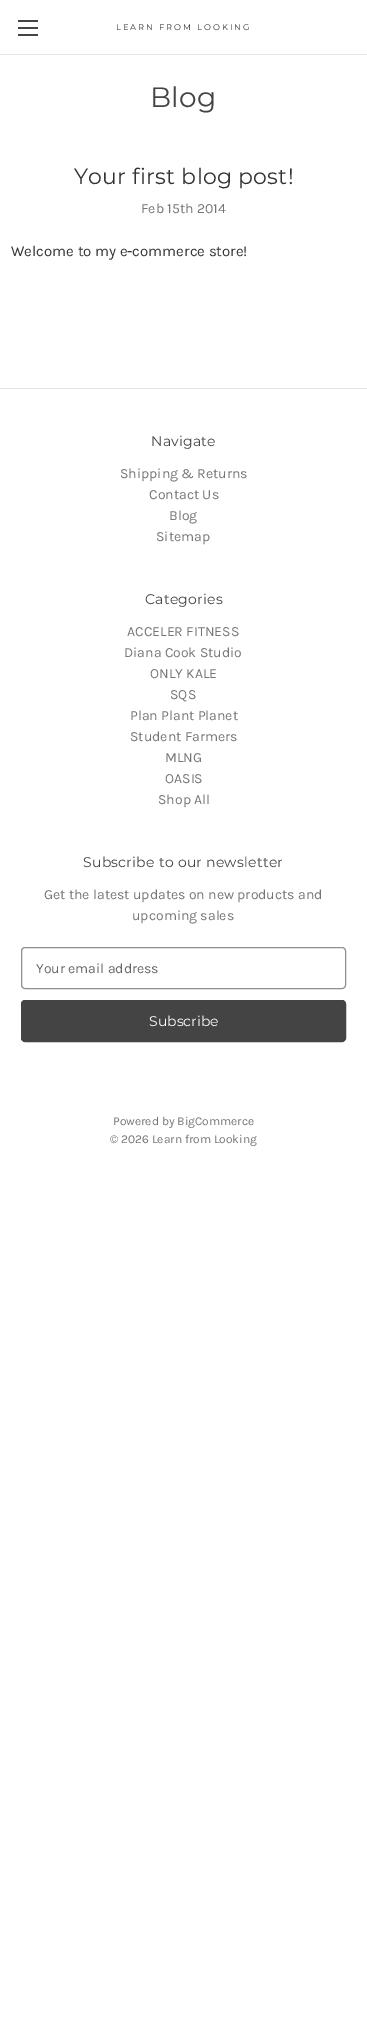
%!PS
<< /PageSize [367 2039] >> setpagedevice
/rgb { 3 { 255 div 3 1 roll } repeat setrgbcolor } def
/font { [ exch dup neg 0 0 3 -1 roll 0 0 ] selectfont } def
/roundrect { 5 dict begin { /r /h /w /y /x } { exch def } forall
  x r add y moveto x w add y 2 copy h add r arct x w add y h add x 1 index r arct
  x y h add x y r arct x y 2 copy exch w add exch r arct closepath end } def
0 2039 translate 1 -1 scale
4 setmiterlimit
255 255 255 rgb
0 0 367 2039 rectfill
[
  [0 54 367 1 229 229 229]
  [18 27 20 2 68 68 68]
  [18 20 20 2 68 68 68]
  [18 34 20 2 68 68 68]
  [0 388 367 1 229 229 229]
] { aload pop rgb rectfill } forall
143 143 143 rgb
21.5 947.5 324 41 3.5 roundrect stroke
68 68 68 rgb
21.5 1000.5 324 41 3.5 roundrect gsave fill grestore
stroke
/Montserrat-Regular 8.25 font
51 51 51 rgb
116 30 moveto 2 0 (LEARN FROM LOOKING) ashow
/Montserrat-Regular 28 font
68 68 68 rgb
150 107 moveto 0.25 0 (Blog) ashow
/Montserrat-Regular 22 font
51 51 51 rgb
74 184 moveto 0.25 0 (Your first blog post!) ashow
/Karla-Regular 14 font
117 117 117 rgb
141 213 moveto (Feb 15th 2014) show
/Karla-Regular 15 font
51 51 51 rgb
11 256 moveto (Welcome to my e-commerce store!) show
/Montserrat-Regular 14 font
68 68 68 rgb
151 446 moveto 0.25 0 (Navigate) ashow
/Karla-Regular 14 font
117 117 117 rgb
[
  [(Shipping & Returns) 120 478]
  [(Contact Us) 149 499]
  [(Blog) 169 520]
  [(Sitemap) 156 541]
] { aload pop moveto show } forall
/Montserrat-Regular 14 font
68 68 68 rgb
145 604 moveto 0.25 0 (Categories) ashow
/Karla-Regular 14 font
117 117 117 rgb
[
  [(ACCELER FITNESS) 127 636]
  [(Diana Cook Studio) 124 657]
  [(ONLY KALE) 150 678]
  [(SQS) 170 699]
  [(Plan Plant Planet) 130 720]
  [(Student Farmers) 130 741]
  [(MLNG) 165 762]
  [(OASIS) 165 783]
  [(Shop All) 158 804]
] { aload pop moveto show } forall
/Montserrat-Regular 14 font
68 68 68 rgb
83 867 moveto 0.25 0 (Subscribe to our newsletter) ashow
/Karla-Regular 14 font
117 117 117 rgb
44 899 moveto (Get the latest updates on new products and) show
132 920 moveto (upcoming sales) show
102 102 102 rgb
36 973 moveto (Your email address) show
/Montserrat-Regular 14 font
255 255 255 rgb
149 1026 moveto (Subscribe) show
/Karla-Regular 12 font
117 117 117 rgb
113 1125 moveto (Powered by BigCommerce) show
110 1143 moveto (© 2026 Learn from Looking) show
showpage
